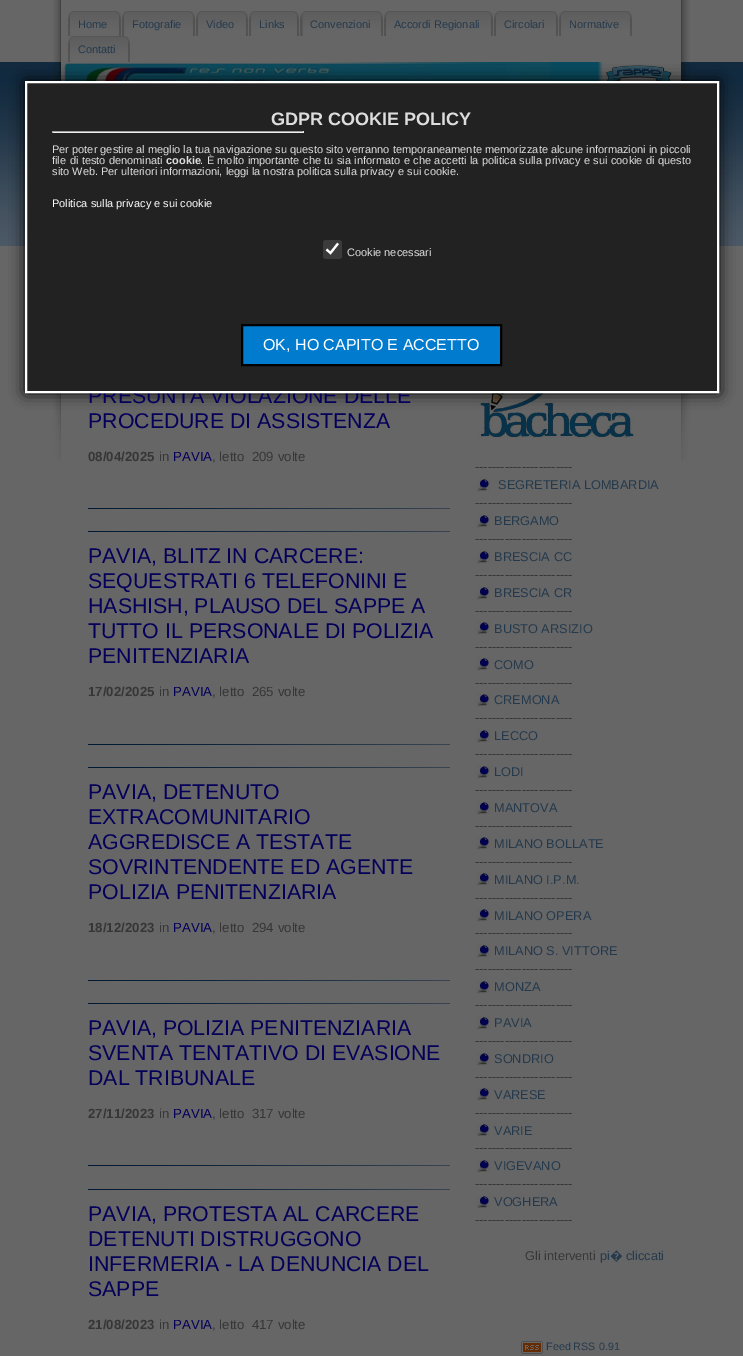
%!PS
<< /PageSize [743 1356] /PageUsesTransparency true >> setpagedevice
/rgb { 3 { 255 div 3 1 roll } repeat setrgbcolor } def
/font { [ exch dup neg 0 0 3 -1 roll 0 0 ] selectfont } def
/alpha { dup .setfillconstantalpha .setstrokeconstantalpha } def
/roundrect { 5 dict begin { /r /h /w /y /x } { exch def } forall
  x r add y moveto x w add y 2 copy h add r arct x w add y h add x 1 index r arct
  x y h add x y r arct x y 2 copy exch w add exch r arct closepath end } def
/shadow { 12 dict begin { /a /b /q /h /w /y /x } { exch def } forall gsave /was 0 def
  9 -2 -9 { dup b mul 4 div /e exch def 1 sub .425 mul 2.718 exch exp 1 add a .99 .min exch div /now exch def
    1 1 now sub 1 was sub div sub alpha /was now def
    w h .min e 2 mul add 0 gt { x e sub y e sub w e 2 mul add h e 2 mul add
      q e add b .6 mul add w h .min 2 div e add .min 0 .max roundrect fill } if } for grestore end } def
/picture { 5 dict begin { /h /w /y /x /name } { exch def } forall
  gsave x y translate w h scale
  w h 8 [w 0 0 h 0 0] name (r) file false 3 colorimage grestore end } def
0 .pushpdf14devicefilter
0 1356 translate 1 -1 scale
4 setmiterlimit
102 102 102 rgb
0 0 743 1356 rectfill
(img/1.rgb) 53 0 8 62 picture
(img/2.rgb) 681 0 9 62 picture
(img/3.rgb) 68 11 4 25 picture
(img/4.rgb) 72 11 49 25 picture
(img/3.rgb) 122 11 4 25 picture
(img/5.rgb) 126 11 69 25 picture
(img/3.rgb) 196 11 4 25 picture
(img/6.rgb) 200 11 48 25 picture
(img/3.rgb) 249 11 4 25 picture
(img/7.rgb) 253 11 46 25 picture
(img/8.rgb) 300 11 4 25 picture
(img/9.rgb) 304 11 79 25 picture
(img/3.rgb) 384 11 4 25 picture
(img/10.rgb) 388 11 105 25 picture
(img/3.rgb) 494 11 4 25 picture
(img/11.rgb) 498 11 60 25 picture
(img/3.rgb) 559 11 4 25 picture
(img/12.rgb) 563 11 69 25 picture
(img/13.rgb) 68 36 4 26 picture
(img/14.rgb) 72 36 58 26 picture
(img/15.rgb) 0 62 743 184 picture
61 62 620 19 rectfill
(img/16.rgb) 48 62 13 19 picture
(img/17.rgb) 681 62 14 19 picture
(img/18.rgb) 62 62 612 19 picture
(img/19.rgb) 53 393 8 68 picture
(img/20.rgb) 681 393 10 68 picture
(img/22.rgb) 475 393 160 45 picture
0 0 0 rgb
25 81 694 312 0 7.5 1 shadow
(img/21.rgb) 88 508 362 1 picture
(img/21.rgb) 88 531 362 1 picture
(img/21.rgb) 88 744 362 1 picture
(img/21.rgb) 88 767 362 1 picture
(img/21.rgb) 88 980 362 1 picture
(img/21.rgb) 88 1003 362 1 picture
(img/21.rgb) 88 1165 362 1 picture
(img/21.rgb) 88 1189 362 1 picture
(img/23.rgb) 475 478 15 14 picture
(img/23.rgb) 475 514 15 14 picture
(img/23.rgb) 475 550 15 14 picture
(img/23.rgb) 475 586 15 14 picture
(img/23.rgb) 475 621 15 14 picture
(img/23.rgb) 475 657 15 14 picture
(img/23.rgb) 475 693 15 14 picture
(img/23.rgb) 475 729 15 14 picture
(img/23.rgb) 475 765 15 14 picture
(img/23.rgb) 475 801 15 14 picture
(img/23.rgb) 475 836 15 14 picture
(img/23.rgb) 475 872 15 14 picture
(img/23.rgb) 475 908 15 14 picture
(img/23.rgb) 475 944 15 14 picture
(img/23.rgb) 475 980 15 14 picture
(img/23.rgb) 475 1016 15 14 picture
(img/23.rgb) 475 1052 15 14 picture
(img/23.rgb) 475 1087 15 14 picture
(img/23.rgb) 475 1123 15 14 picture
(img/23.rgb) 475 1159 15 14 picture
(img/23.rgb) 475 1195 15 14 picture
(img/24.rgb) 521 1341 22 13 picture
/LiberationSans-Regular 11 font
36 57 76 rgb
[
  [(Home) 78 28]
  [(Fotografie) 132 28]
  [(Video) 206 28]
  [(Links) 259 28]
  [(Convenzioni) 310 28]
  [(Accordi Regionali) 394 28]
  [(Circolari) 504 28]
  [(Normative) 569 28]
  [(Contatti) 78 53]
] { aload pop moveto show } forall
/LiberationSans-Regular 21.3 font
4 0 90 rgb
88 403 moveto (PRESUNTA VIOLAZIONE DELLE) show
34 34 34 rgb
26 82 moveto 718 82 lineto 718 392 lineto 26 392 lineto closepath gsave fill grestore
255 255 255 rgb
2 setlinewidth
stroke
59 59 59 rgb
323 240 19 19 3 roundrect fill
255 255 255 rgb
2.1 setlinewidth
326.5 249.5 moveto 330.5 253 lineto 338 243.5 lineto stroke
[
  [52 131 252 1 159 159 159]
  [303 131 1 2 238 238 238]
  [52 132 252 1 238 238 238]
  [52 131 1 2 159 159 159]
] { aload pop rgb rectfill } forall
0 123 206 rgb
242 325 moveto 501 325 lineto 501 365 lineto 242 365 lineto closepath gsave fill grestore
0 0 0 rgb
2 setlinewidth
stroke
/LiberationSans-Regular 16 font
255 255 255 rgb
263 350 moveto (OK, HO CAPITO E ACCETTO) show
/LiberationSans-Regular 11 font
221 221 221 rgb
347 256 moveto (Cookie necessari) show
255 255 255 rgb
52 207 moveto (Politica sulla privacy e sui cookie) show
221 221 221 rgb
52 175 moveto (sito Web. Per ulteriori informazioni, leggi la nostra politica sulla privacy e sui cookie.) show
200 164 moveto 0.4 0 32 (. È molto importante che tu sia informato e che accetti la politica sulla privacy e sui cookie di questo) widthshow
/LiberationSans-Bold 11 font
166 164 moveto (cookie) show
/LiberationSans-Regular 11 font
52 164 moveto 0.4 0 32 (file di testo denominati) widthshow
52 153 moveto (Per poter gestire al meglio la tua navigazione su questo sito verranno temporaneamente memorizzate alcune informazioni in piccoli) show
/LiberationSans-Bold 18 font
271 125 moveto (GDPR COOKIE POLICY) show
/LiberationSans-Regular 21.3 font
4 0 90 rgb
88 428 moveto (PROCEDURE DI ASSISTENZA) show
/LiberationSans-Bold 13.25 font
54 54 54 rgb
88 461 moveto (08/04/2025) show
/LiberationSans-Regular 13.25 font
159 461 moveto (in) show
4 0 90 rgb
173 461 moveto (PAVIA) show
54 54 54 rgb
212 461 moveto (, letto  209 volte) show
/LiberationSans-Regular 21.3 font
4 0 90 rgb
[
  [(PAVIA, BLITZ IN CARCERE:) 88 563]
  [(SEQUESTRATI 6 TELEFONINI E) 88 588]
  [(HASHISH, PLAUSO DEL SAPPE A) 88 613]
  [(TUTTO IL PERSONALE DI POLIZIA) 88 638]
  [(PENITENZIARIA) 88 663]
] { aload pop moveto show } forall
/LiberationSans-Bold 13.25 font
54 54 54 rgb
88 696 moveto (17/02/2025) show
/LiberationSans-Regular 13.25 font
159 696 moveto (in) show
4 0 90 rgb
173 696 moveto (PAVIA) show
54 54 54 rgb
212 696 moveto (, letto  265 volte) show
/LiberationSans-Regular 21.3 font
4 0 90 rgb
[
  [(PAVIA, DETENUTO) 88 799]
  [(EXTRACOMUNITARIO) 88 824]
  [(AGGREDISCE A TESTATE) 88 849]
  [(SOVRINTENDENTE ED AGENTE) 88 874]
  [(POLIZIA PENITENZIARIA) 88 899]
] { aload pop moveto show } forall
/LiberationSans-Bold 13.25 font
54 54 54 rgb
88 932 moveto (18/12/2023) show
/LiberationSans-Regular 13.25 font
159 932 moveto (in) show
4 0 90 rgb
173 932 moveto (PAVIA) show
54 54 54 rgb
212 932 moveto (, letto  294 volte) show
/LiberationSans-Regular 21.3 font
4 0 90 rgb
[
  [(PAVIA, POLIZIA PENITENZIARIA) 88 1035]
  [(SVENTA TENTATIVO DI EVASIONE) 88 1060]
  [(DAL TRIBUNALE) 88 1085]
] { aload pop moveto show } forall
/LiberationSans-Bold 13.25 font
54 54 54 rgb
88 1118 moveto (27/11/2023) show
/LiberationSans-Regular 13.25 font
159 1118 moveto (in) show
4 0 90 rgb
173 1118 moveto (PAVIA) show
54 54 54 rgb
212 1118 moveto (, letto  317 volte) show
/LiberationSans-Regular 21.3 font
4 0 90 rgb
[
  [(PAVIA, PROTESTA AL CARCERE) 88 1221]
  [(DETENUTI DISTRUGGONO) 88 1246]
  [(INFERMERIA - LA DENUNCIA DEL) 88 1271]
  [(SAPPE) 88 1296]
] { aload pop moveto show } forall
/LiberationSans-Bold 13.25 font
54 54 54 rgb
88 1329 moveto (21/08/2023) show
/LiberationSans-Regular 13.25 font
159 1329 moveto (in) show
4 0 90 rgb
173 1329 moveto (PAVIA) show
54 54 54 rgb
212 1329 moveto (, letto  417 volte) show
/LiberationSans-Regular 12.75 font
475 471 moveto (-----------------------) show
36 57 76 rgb
498 489 moveto (SEGRETERIA LOMBARDIA) show
54 54 54 rgb
475 507 moveto (-----------------------) show
36 57 76 rgb
494 525 moveto (BERGAMO) show
54 54 54 rgb
475 543 moveto (-----------------------) show
36 57 76 rgb
494 561 moveto (BRESCIA CC) show
54 54 54 rgb
475 579 moveto (-----------------------) show
36 57 76 rgb
494 597 moveto (BRESCIA CR) show
54 54 54 rgb
475 615 moveto (-----------------------) show
36 57 76 rgb
494 633 moveto (BUSTO ARSIZIO) show
54 54 54 rgb
475 651 moveto (-----------------------) show
36 57 76 rgb
494 669 moveto (COMO) show
54 54 54 rgb
475 687 moveto (-----------------------) show
36 57 76 rgb
494 704 moveto (CREMONA) show
54 54 54 rgb
475 722 moveto (-----------------------) show
36 57 76 rgb
494 740 moveto (LECCO) show
54 54 54 rgb
475 758 moveto (-----------------------) show
36 57 76 rgb
494 776 moveto (LODI) show
54 54 54 rgb
475 794 moveto (-----------------------) show
36 57 76 rgb
494 812 moveto (MANTOVA) show
54 54 54 rgb
475 830 moveto (-----------------------) show
36 57 76 rgb
494 848 moveto (MILANO BOLLATE) show
54 54 54 rgb
475 866 moveto (-----------------------) show
36 57 76 rgb
494 884 moveto (MILANO I.P.M.) show
54 54 54 rgb
475 902 moveto (-----------------------) show
36 57 76 rgb
494 920 moveto (MILANO OPERA) show
54 54 54 rgb
475 937 moveto (-----------------------) show
36 57 76 rgb
494 955 moveto (MILANO S. VITTORE) show
54 54 54 rgb
475 973 moveto (-----------------------) show
36 57 76 rgb
494 991 moveto (MONZA) show
54 54 54 rgb
475 1009 moveto (-----------------------) show
36 57 76 rgb
494 1027 moveto (PAVIA) show
54 54 54 rgb
475 1045 moveto (-----------------------) show
36 57 76 rgb
494 1063 moveto (SONDRIO) show
54 54 54 rgb
475 1081 moveto (-----------------------) show
36 57 76 rgb
494 1099 moveto (VARESE) show
54 54 54 rgb
475 1117 moveto (-----------------------) show
36 57 76 rgb
494 1135 moveto (VARIE) show
54 54 54 rgb
475 1152 moveto (-----------------------) show
36 57 76 rgb
494 1170 moveto (VIGEVANO) show
54 54 54 rgb
475 1188 moveto (-----------------------) show
36 57 76 rgb
494 1206 moveto (VOGHERA) show
54 54 54 rgb
475 1224 moveto (-----------------------) show
525 1260 moveto (Gli interventi) show
36 57 76 rgb
600 1260 moveto (pi) show
/NotoSans-Regular 12.75 font
610 1260 moveto (�) show
/LiberationSans-Regular 12.75 font
626 1260 moveto (cliccati) show
/LiberationSans-Regular 10.75 font
546 1350 moveto (Feed RSS 0.91) show
.poppdf14devicefilter showpage
